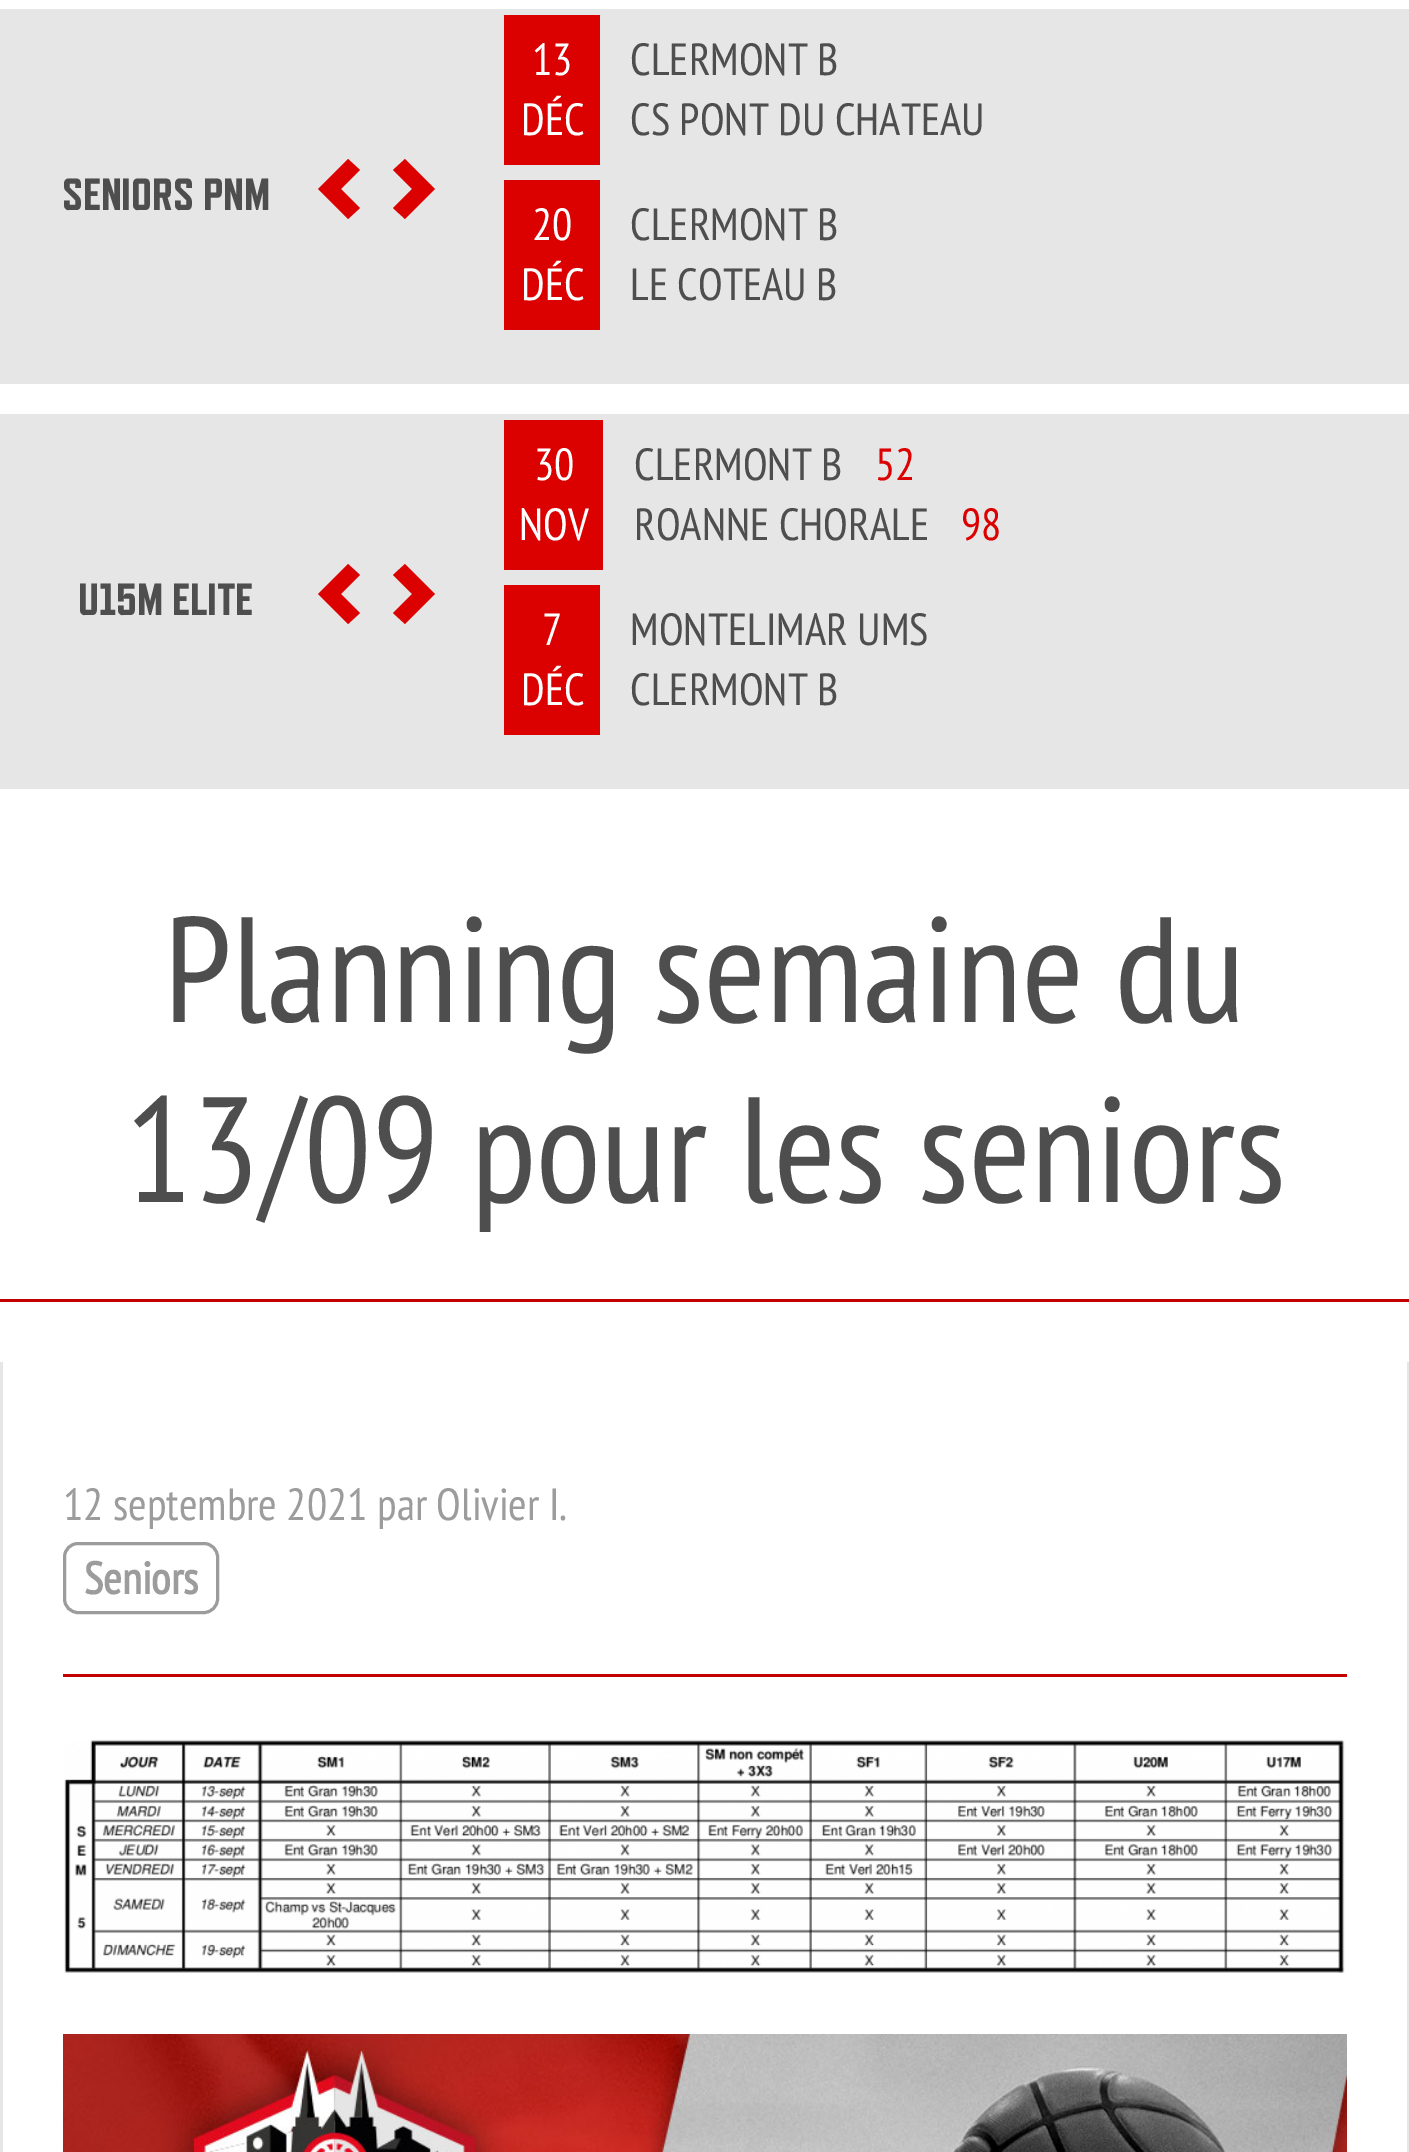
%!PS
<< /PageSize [1409 2152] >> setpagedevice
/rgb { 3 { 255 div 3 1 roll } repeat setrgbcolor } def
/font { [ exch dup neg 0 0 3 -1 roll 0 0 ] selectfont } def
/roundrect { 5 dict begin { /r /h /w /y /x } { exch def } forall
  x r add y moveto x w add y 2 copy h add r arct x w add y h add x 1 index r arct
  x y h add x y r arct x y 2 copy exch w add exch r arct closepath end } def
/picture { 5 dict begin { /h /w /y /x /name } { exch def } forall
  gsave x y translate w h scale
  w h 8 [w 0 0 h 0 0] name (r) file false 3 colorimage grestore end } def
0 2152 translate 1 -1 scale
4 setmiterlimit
255 255 255 rgb
0 0 1409 2152 rectfill
230 230 230 rgb
0 9 1409 375 rectfill
219 1 0 rgb
348 159 moveto 318 189 lineto 348 219 lineto 360 208 lineto 341 189 lineto 360 170 lineto closepath fill
405 159 moveto 393 170 lineto 412 189 lineto 393 208 lineto 405 219 lineto 435 189 lineto closepath fill
[
  [504 15 96 150 219 1 0]
  [504 180 96 150 219 1 0]
  [0 414 1409 375 230 230 230]
] { aload pop rgb rectfill } forall
219 1 0 rgb
348 564 moveto 318 594 lineto 348 624 lineto 360 613 lineto 341 594 lineto 360 575 lineto closepath fill
405 564 moveto 393 575 lineto 412 594 lineto 393 613 lineto 405 624 lineto 435 594 lineto closepath fill
[
  [504 420 99 150 219 1 0]
  [504 585 96 150 219 1 0]
  [0 1299 1409 3 197 1 0]
  [1407 1362 2 790 230 230 230]
  [0 1362 3 790 230 230 230]
] { aload pop rgb rectfill } forall
156 156 156 rgb
3 setlinewidth
64.5 1543.5 153 69 13.5 roundrect stroke
197 1 0 rgb
63 1674 1284 3 rectfill
(img/1.rgb) 64 1739 1281 234 picture
(img/2.rgb) 63 2034 1284 118 picture
/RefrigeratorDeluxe-ExtraBold 45 font
78 78 78 rgb
62 210 moveto (SENIORS PNM) show
/PTSansNarrow-Regular 45 font
255 255 255 rgb
532 75 moveto (13) show
521 135 moveto (DÉC) show
78 78 78 rgb
630 75 moveto (CLERMONT B) show
630 135 moveto (CS PONT DU CHATEAU) show
255 255 255 rgb
532 240 moveto (20) show
521 300 moveto (DÉC) show
78 78 78 rgb
630 240 moveto (CLERMONT B) show
630 300 moveto (LE COTEAU B) show
/RefrigeratorDeluxe-ExtraBold 45 font
78 615 moveto (U15M ELITE) show
/PTSansNarrow-Regular 45 font
255 255 255 rgb
534 480 moveto (30) show
519 540 moveto (NOV) show
78 78 78 rgb
634 480 moveto (CLERMONT B) show
219 1 0 rgb
875 480 moveto (52) show
78 78 78 rgb
634 540 moveto (ROANNE CHORALE) show
219 1 0 rgb
961 540 moveto (98) show
255 255 255 rgb
542 645 moveto (7) show
521 705 moveto (DÉC) show
78 78 78 rgb
630 645 moveto (MONTELIMAR UMS) show
630 705 moveto (CLERMONT B) show
/PTSansNarrow-Regular 150 font
164 1022 moveto (Planning semaine du) show
125 1202 moveto (13/09 pour les seniors) show
/PTSansNarrow-Regular 45 font
156 156 156 rgb
63 1520 moveto (12 septembre 2021 par Olivier I.) show
/PTSansNarrow-Bold 45 font
84 1594 moveto (Seniors) show
showpage
